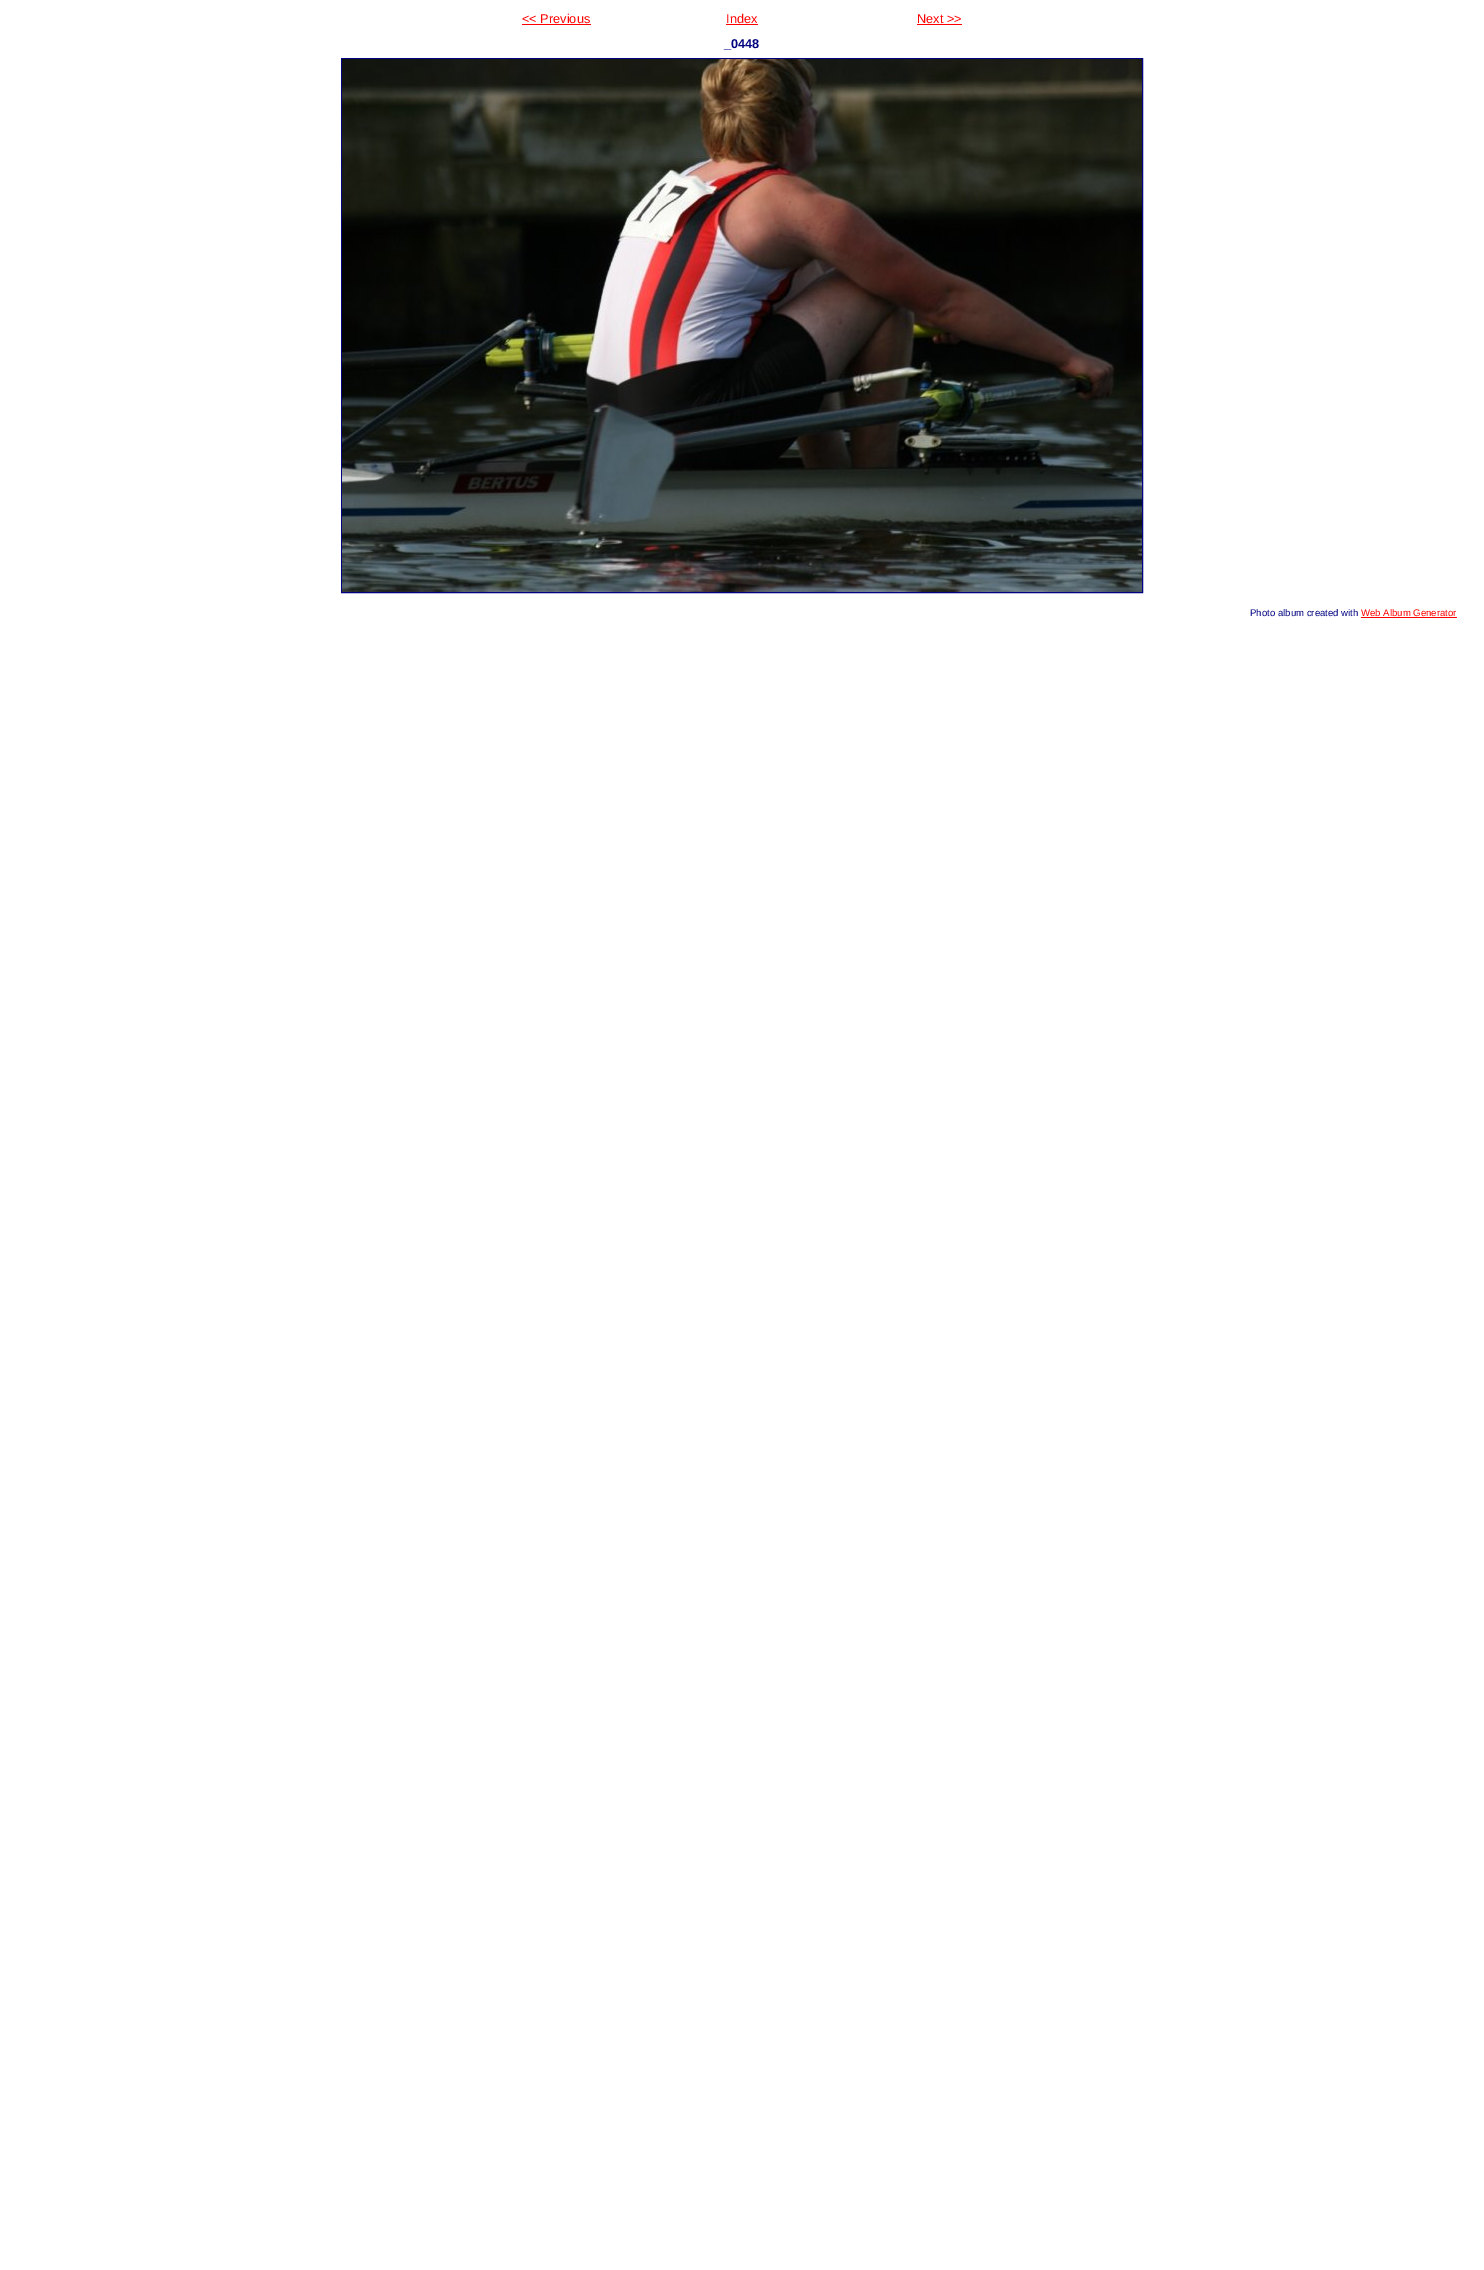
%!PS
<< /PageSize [1484 2270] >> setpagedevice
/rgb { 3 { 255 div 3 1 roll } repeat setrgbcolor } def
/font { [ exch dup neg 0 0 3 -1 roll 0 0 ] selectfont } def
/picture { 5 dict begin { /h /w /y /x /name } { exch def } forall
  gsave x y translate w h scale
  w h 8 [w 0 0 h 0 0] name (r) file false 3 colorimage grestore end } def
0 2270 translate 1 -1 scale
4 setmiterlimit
255 255 255 rgb
0 0 1484 2270 rectfill
[
  [522 24 69 1 255 0 0]
  [726 24 32 1 255 0 0]
  [917 24 45 1 255 0 0]
] { aload pop rgb rectfill } forall
0 0 128 rgb
341.5 58.5 801 534 rectstroke
(img/1.rgb) 342 59 800 533 picture
255 0 0 rgb
1361 617 96 1 rectfill
/LiberationSans-Regular 12.75 font
[
  [(<< Previous) 522 23]
  [(Index) 726 23]
  [(Next >>) 917 23]
] { aload pop moveto show } forall
/LiberationSans-Bold 12.75 font
0 0 128 rgb
724 48 moveto (_0448) show
/LiberationSans-Regular 9.6 font
1250 616 moveto (Photo album created with) show
255 0 0 rgb
1361 616 moveto (Web Album Generator) show
showpage
